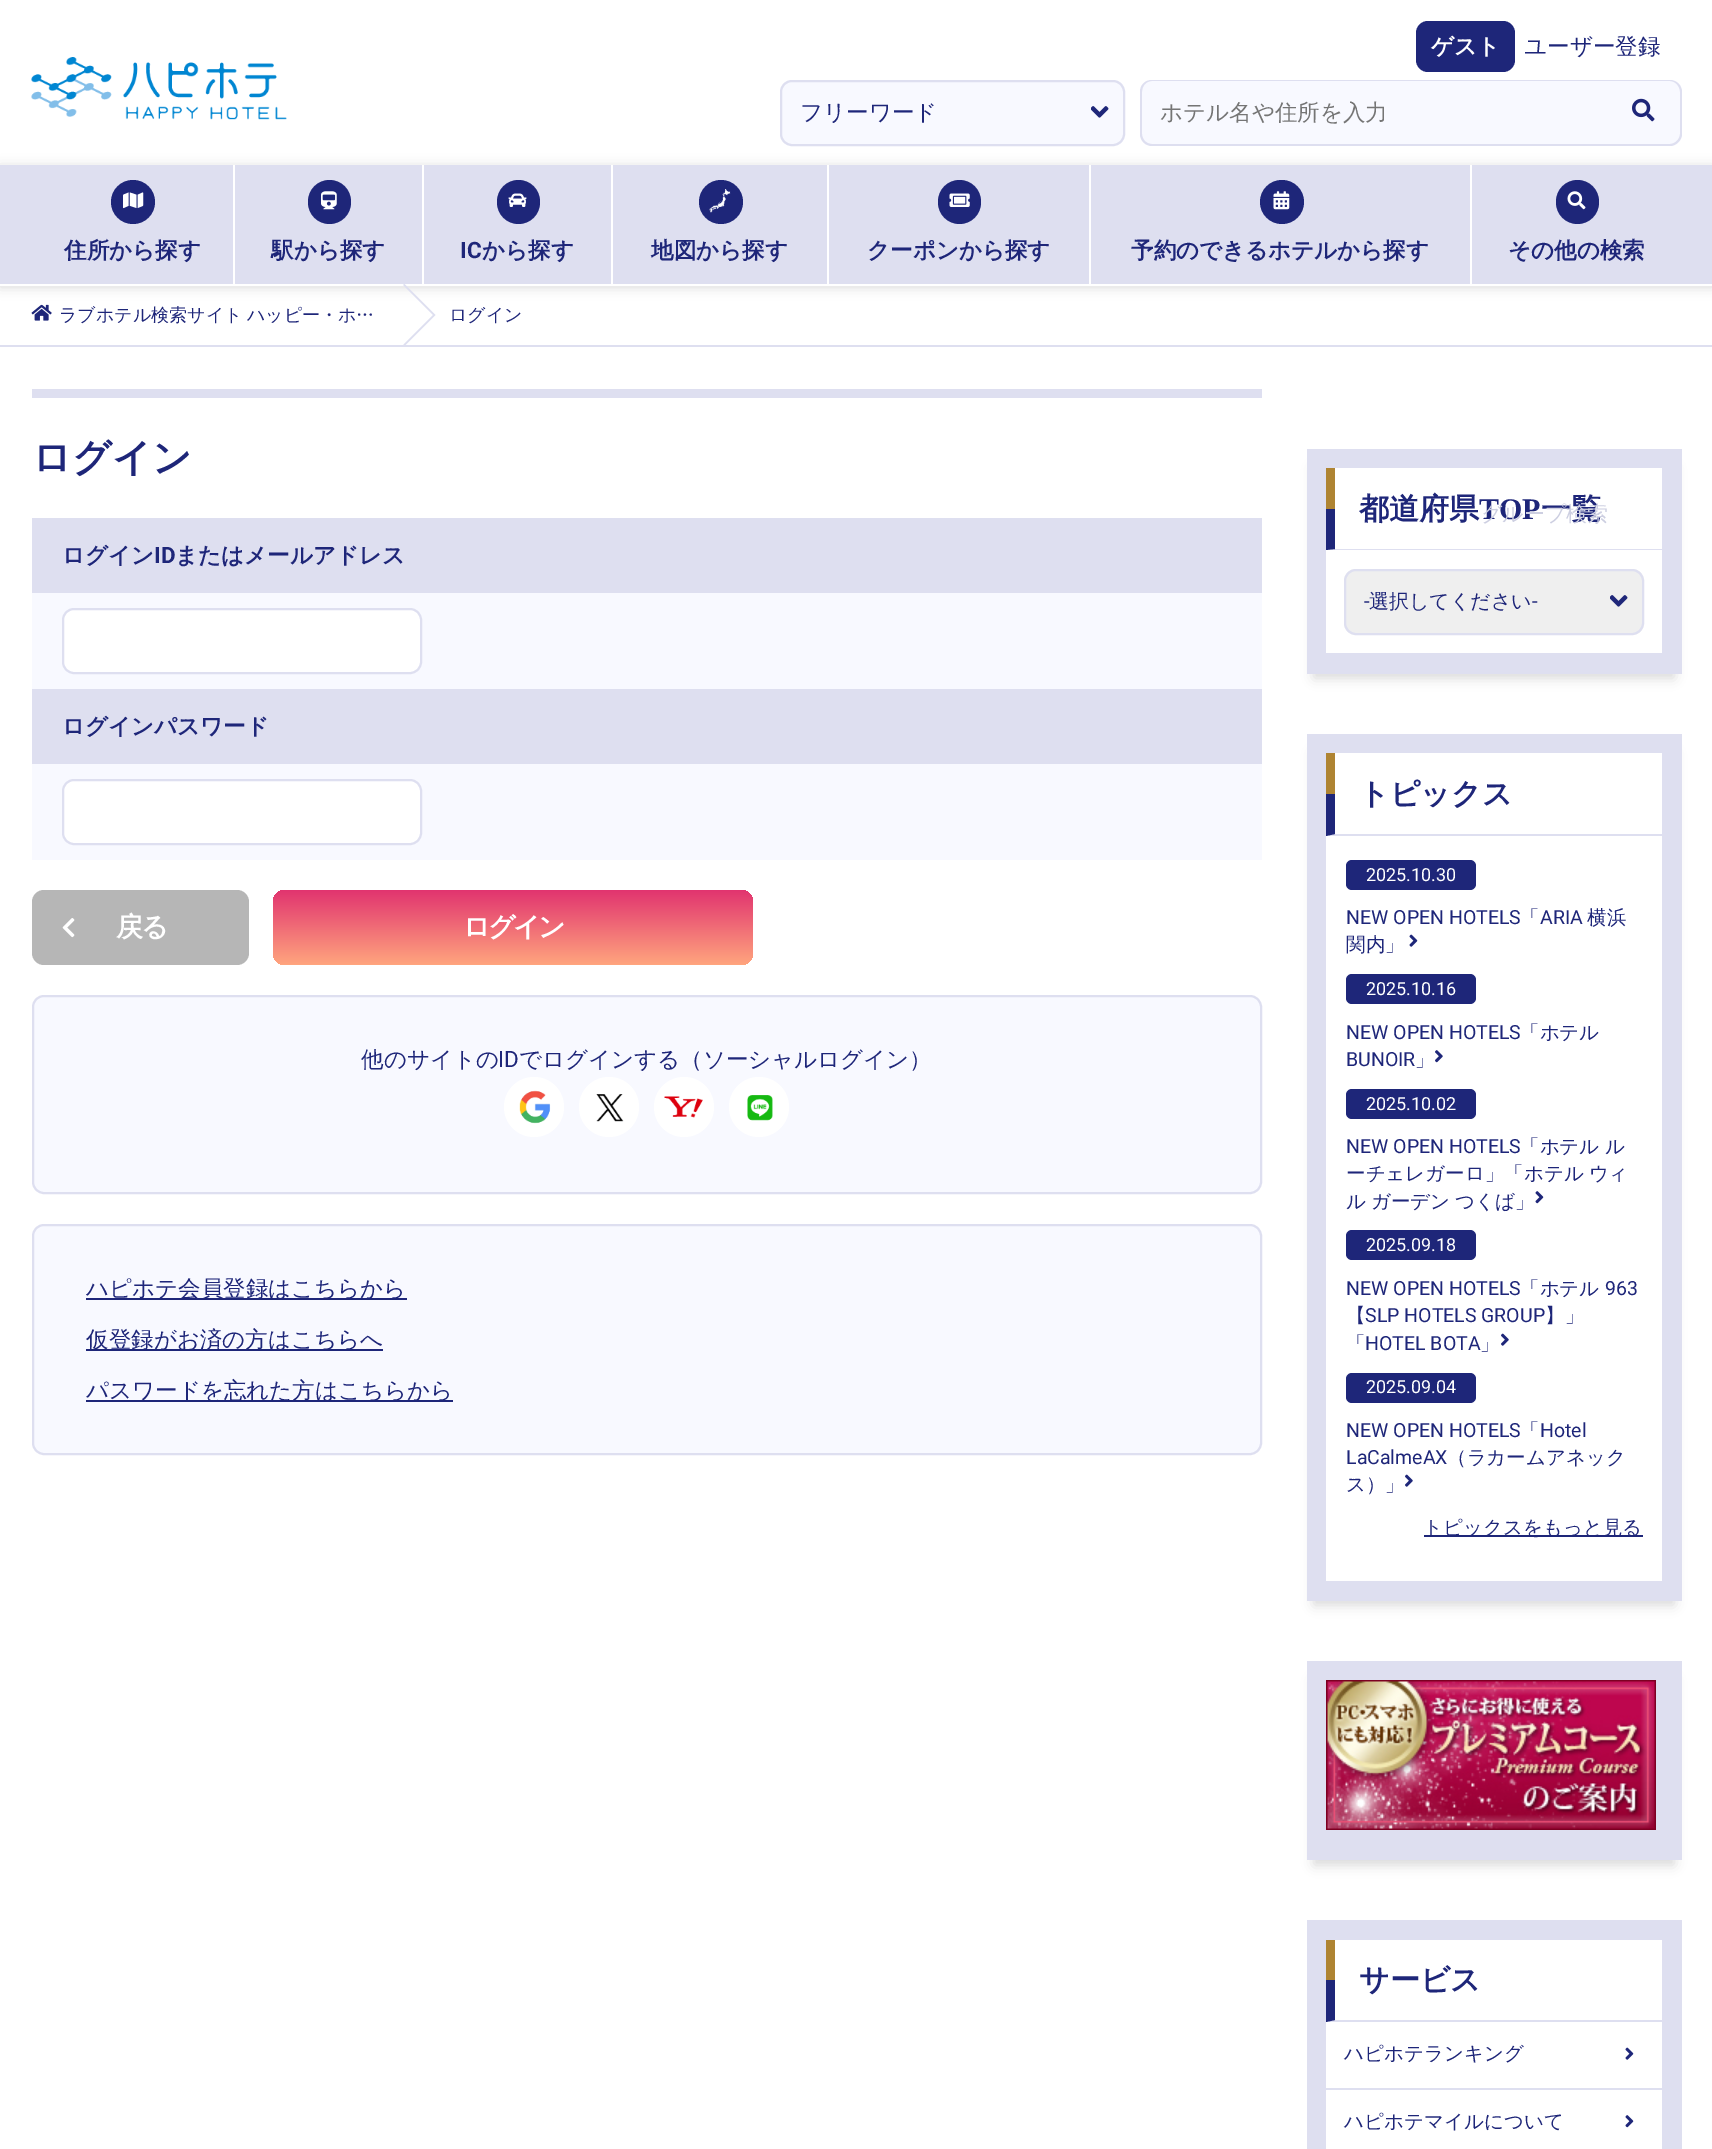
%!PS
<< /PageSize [1712 2149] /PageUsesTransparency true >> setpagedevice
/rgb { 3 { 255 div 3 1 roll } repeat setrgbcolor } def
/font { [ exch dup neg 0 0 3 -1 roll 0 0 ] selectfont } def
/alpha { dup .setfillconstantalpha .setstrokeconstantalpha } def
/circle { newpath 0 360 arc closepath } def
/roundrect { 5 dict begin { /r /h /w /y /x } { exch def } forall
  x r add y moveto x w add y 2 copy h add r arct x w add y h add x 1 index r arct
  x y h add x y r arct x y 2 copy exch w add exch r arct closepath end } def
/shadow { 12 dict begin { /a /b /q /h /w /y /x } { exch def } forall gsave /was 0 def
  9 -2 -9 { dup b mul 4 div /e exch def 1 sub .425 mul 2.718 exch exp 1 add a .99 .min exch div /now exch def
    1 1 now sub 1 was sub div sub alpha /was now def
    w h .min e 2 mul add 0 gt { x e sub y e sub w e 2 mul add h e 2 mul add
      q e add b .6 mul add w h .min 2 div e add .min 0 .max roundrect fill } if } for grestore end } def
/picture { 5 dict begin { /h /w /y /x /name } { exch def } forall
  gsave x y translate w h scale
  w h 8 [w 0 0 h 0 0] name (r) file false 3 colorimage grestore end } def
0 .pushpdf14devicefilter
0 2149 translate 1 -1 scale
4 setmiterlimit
255 255 255 rgb
0 0 1712 2149 rectfill
30 38 121 rgb
1416 21 99 51 12 roundrect fill
(img/1.rgb) 31 57 256 63 picture
248 249 255 rgb
780 80 345 66 12 roundrect fill
(img/2.rgb) 1091 106 18 12 picture
222 223 240 rgb
2 setlinewidth
781 81 343 64 11 roundrect stroke
248 249 255 rgb
1152 80 moveto 1605 80 lineto 1605 146 lineto 1152 146 lineto 1145.5 146 1140 140.5 1140 134 curveto 1140 92 lineto 1140 85.5 1145.5 80 1152 80 curveto closepath fill
222 223 240 rgb
1152 80 moveto 1605 80 lineto 1605 146 lineto 1152 146 lineto 1145 146 1140 140 1140 134 curveto 1140 92 lineto 1140 85 1145 80 1152 80 curveto closepath 1152 81 moveto 1605 81 lineto 1605 144 lineto 1152 144 lineto 1146 144 1142 139 1142 134 curveto 1142 92 lineto 1142 86 1146 81 1152 81 curveto closepath eofill
248 249 255 rgb
1605 80 moveto 1670 80 lineto 1676.5 80 1682 85.5 1682 92 curveto 1682 134 lineto 1682 140.5 1676.5 146 1670 146 curveto 1605 146 lineto closepath fill
222 223 240 rgb
1605 80 moveto 1670 80 lineto 1676 80 1682 85 1682 92 curveto 1682 134 lineto 1682 140 1676 146 1670 146 curveto 1605 146 lineto closepath 1605 81 moveto 1670 81 lineto 1675 81 1680 86 1680 92 curveto 1680 134 lineto 1680 139 1675 144 1670 144 curveto 1605 144 lineto closepath eofill
(img/3.rgb) 1632 98 23 24 picture
0 0 0 rgb
0 167 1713 120 0 6 0.15 shadow
[
  [0 165 1712 119 222 223 240]
  [0 284 1712 2 255 255 255]
  [233 165 2 119 255 255 255]
] { aload pop rgb rectfill } forall
30 38 121 rgb
133 202 22 circle fill
(img/4.rgb) 123 192 21 17 picture
255 255 255 rgb
422 165 2 119 rectfill
30 38 121 rgb
308 180 43 44 21.5 roundrect fill
(img/5.rgb) 321 191 16 19 picture
255 255 255 rgb
611 165 2 119 rectfill
30 38 121 rgb
497 180 43 44 21.5 roundrect fill
(img/6.rgb) 508 193 19 14 picture
255 255 255 rgb
827 165 2 119 rectfill
30 38 121 rgb
721 202 22 circle fill
(img/7.rgb) 709 189 22 24 picture
255 255 255 rgb
1089 165 2 119 rectfill
30 38 121 rgb
938 180 43 44 21.5 roundrect fill
(img/8.rgb) 949 193 21 14 picture
255 255 255 rgb
1470 165 2 119 rectfill
30 38 121 rgb
1282 202 22 circle fill
(img/9.rgb) 1273 191 17 19 picture
1556 180 43 44 21.5 roundrect fill
(img/10.rgb) 1567 191 19 19 picture
222 223 240 rgb
0 345 1712 2 rectfill
(img/11.rgb) 31 304 21 17 picture
403.5 283 moveto 435.5 315 lineto 433 315 lineto 403.5 285.5 lineto closepath fill
435.5 315 moveto 403.5 347 lineto 403.5 344.5 lineto 433 315 lineto closepath fill
[
  [32 389 1230 9 222 223 240]
  [32 518 1230 75 222 223 240]
  [32 593 1230 96 248 249 255]
] { aload pop rgb rectfill } forall
255 255 255 rgb
63 609 358 64 11 roundrect gsave fill grestore
222 223 240 rgb
stroke
32 689 1230 75 rectfill
248 249 255 rgb
32 764 1230 96 rectfill
255 255 255 rgb
63 780 358 64 11 roundrect gsave fill grestore
222 223 240 rgb
stroke
182 182 182 rgb
32 890 217 75 12 roundrect fill
(img/12.rgb) 62 918 13 20 picture
gsave 273 890 480 75 12 roundrect clip newpath
<< /ShadingType 2 /ColorSpace /DeviceRGB /Coords [513 890 513 965] /Extend [true true] /Function << /FunctionType 2 /Domain [0 1] /C0 [0.882 0.204 0.435] /C1 [1 0.647 0.494] /N 1 >> >> shfill grestore
248 249 255 rgb
33 996 1228 197 11 roundrect gsave fill grestore
222 223 240 rgb
stroke
255 255 255 rgb
534 1107 30 circle fill
(img/13.rgb) 519 1090 32 34 picture
609 1107 30 circle fill
(img/14.rgb) 596 1094 28 28 picture
684 1107 30 circle fill
(img/15.rgb) 664 1096 39 22 picture
759 1107 30 circle fill
(img/16.rgb) 747 1095 26 26 picture
248 249 255 rgb
33 1225 1228 229 11 roundrect gsave fill grestore
222 223 240 rgb
stroke
[
  [86 1298 321 2 30 38 121]
  [86 1349 297 2 30 38 121]
  [86 1400 367 2 30 38 121]
] { aload pop rgb rectfill } forall
0 0 0 rgb
1314 468 360 210 0 6 0.15 shadow
222 223 240 rgb
1307 449 375 225 rectfill
255 255 255 rgb
1326 468 336 185 rectfill
222 223 240 rgb
1662 550 moveto 1326 550 lineto 1335 549 lineto 1662 549 lineto closepath fill
30 38 121 rgb
1326 550 moveto 1326 468 lineto 1335 468 lineto 1335 549 lineto closepath fill
175 132 50 rgb
1326 468 9 41 rectfill
239 239 239 rgb
1344 569 300 66 12 roundrect fill
(img/17.rgb) 1610 595 18 12 picture
222 223 240 rgb
1345 570 298 64 11 roundrect stroke
0 0 0 rgb
1314 753 360 852 0 6 0.15 shadow
222 223 240 rgb
1307 734 375 867 rectfill
255 255 255 rgb
1326 753 336 828 rectfill
222 223 240 rgb
1662 836 moveto 1326 836 lineto 1335 834 lineto 1662 834 lineto closepath fill
30 38 121 rgb
1326 836 moveto 1326 753 lineto 1335 753 lineto 1335 834 lineto closepath fill
175 132 50 rgb
1326 753 9 41 rectfill
30 38 121 rgb
1346 860 130 30 6 roundrect fill
(img/18.rgb) 1409 934 9 13 picture
1346 974 130 30 6 roundrect fill
(img/19.rgb) 1435 1050 8 13 picture
1346 1089 130 30 6 roundrect fill
(img/20.rgb) 1535 1191 9 13 picture
1346 1230 130 30 6 roundrect fill
(img/21.rgb) 1501 1333 8 13 picture
1346 1373 130 30 6 roundrect fill
(img/21.rgb) 1405 1474 8 13 picture
1424 1535 219 2 rectfill
0 0 0 rgb
1314 1680 360 185 0 6 0.15 shadow
222 223 240 rgb
1307 1661 375 199 rectfill
(img/22.rgb) 1326 1680 330 150 picture
1307 1920 375 229 rectfill
255 255 255 rgb
1326 1940 336 209 rectfill
222 223 240 rgb
1662 2022 moveto 1326 2022 lineto 1335 2020 lineto 1662 2020 lineto closepath fill
30 38 121 rgb
1326 2022 moveto 1326 1940 lineto 1335 1940 lineto 1335 2020 lineto closepath fill
175 132 50 rgb
1326 1940 9 40 rectfill
222 223 240 rgb
1326 2088 336 2 rectfill
(img/18.rgb) 1625 2047 9 13 picture
(img/20.rgb) 1625 2115 9 13 picture
/WenQuanYiZenHei-Bold 22.5 font
255 255 255 rgb
1431 54 moveto (ゲスト) show
/WenQuanYiZenHei-Medium 22.5 font
30 38 121 rgb
1524 54 moveto (ユーザー登録) show
800 120 moveto (フリーワード) show
117 117 117 rgb
1160 120 moveto (ホテル名や住所を入力) show
/WenQuanYiZenHei-Bold 22.5 font
30 38 121 rgb
64 258 moveto (住所から探す) show
271 258 moveto (駅から探す) show
/Roboto-Bold 22.5 font
460 258 moveto (IC) show
/WenQuanYiZenHei-Bold 22.5 font
[
  [(から探す) 482 258]
  [(地図から探す) 651 258]
  [(クーポンから探す) 867 258]
  [(予約のできるホテルから探す) 1131 258]
  [(その他の検索) 1508 258]
] { aload pop moveto show } forall
/WenQuanYiZenHei-Medium 18 font
59 321 moveto -1 0 32 (ラブホテル検索サイト ハッピー・ホ…) widthshow
449 321 moveto (ログイン) show
/WenQuanYiZenHei-Bold 39 font
32 471 moveto (ログイン) show
/WenQuanYiZenHei-Bold 22.5 font
62 563 moveto (ログイン) show
/Roboto-Bold 22.5 font
154 563 moveto (ID) show
/WenQuanYiZenHei-Bold 22.5 font
175 563 moveto (またはメールアドレス) show
62 734 moveto (ログインパスワード) show
/WenQuanYiZenHei-Bold 27 font
255 255 255 rgb
116 936 moveto -2.5 0 (戻る) ashow
463 936 moveto -2.5 0 (ログイン) ashow
/WenQuanYiZenHei-Medium 22.5 font
30 38 121 rgb
361 1067 moveto (他のサイトの) show
/Roboto-Regular 22.5 font
498 1067 moveto (ID) show
/WenQuanYiZenHei-Medium 22.5 font
[
  [(でログインする（ソーシャルログイン）) 519 1067]
  [(ハピホテ会員登録はこちらから) 86 1296]
  [(仮登録がお済の方はこちらへ) 86 1347]
  [(パスワードを忘れた方はこちらから) 86 1398]
] { aload pop moveto show } forall
/WenQuanYiZenHei-Bold 30 font
1359 519 moveto (都道府県) show
/LiberationSerif-Bold 30 font
1479 519 moveto (TOP) show
/WenQuanYiZenHei-Bold 30 font
1541 519 moveto (一覧) show
/WenQuanYiZenHei-Medium 21 font
205 207 225 rgb
1481 521 moveto (グループ検索) show
/Roboto-Regular 20 font
30 38 121 rgb
1364 608 moveto (-) show
/WenQuanYiZenHei-Medium 20 font
1369 608 moveto (選択してください) show
/Roboto-Regular 20 font
1532 608 moveto (-) show
/WenQuanYiZenHei-Bold 30 font
1359 804 moveto (トピックス) show
/Roboto-Regular 18 font
255 255 255 rgb
1366 881 moveto (2025.10.30) show
/Roboto-Regular 19.5 font
30 38 121 rgb
1346 924 moveto (NEW OPEN HOTELS) show
/WenQuanYiZenHei-Medium 19.5 font
1520 924 moveto (「) show
/Roboto-Regular 19.5 font
1540 924 moveto (ARIA) show
/WenQuanYiZenHei-Medium 19.5 font
1587 924 moveto (横浜) show
1346 951 moveto (関内」) show
/Roboto-Regular 18 font
255 255 255 rgb
1366 995 moveto (2025.10.16) show
/Roboto-Regular 19.5 font
30 38 121 rgb
1346 1039 moveto (NEW OPEN HOTELS) show
/WenQuanYiZenHei-Medium 19.5 font
1520 1039 moveto (「ホテル) show
/Roboto-Regular 19.5 font
1346 1066 moveto (BUNOIR) show
/WenQuanYiZenHei-Medium 19.5 font
1415 1066 moveto (」) show
/Roboto-Regular 18 font
255 255 255 rgb
1366 1110 moveto (2025.10.02) show
/Roboto-Regular 19.5 font
30 38 121 rgb
1346 1153 moveto (NEW OPEN HOTELS) show
/WenQuanYiZenHei-Medium 19.5 font
1520 1153 moveto (「ホテル) show
1605 1153 moveto (ル) show
1346 1180 moveto -1 0 32 (ーチェレガーロ」「ホテル ウィ) widthshow
1346 1208 moveto -1 0 32 (ル ガーデン つくば」) widthshow
/Roboto-Regular 18 font
255 255 255 rgb
1366 1251 moveto (2025.09.18) show
/Roboto-Regular 19.5 font
30 38 121 rgb
1346 1295 moveto (NEW OPEN HOTELS) show
/WenQuanYiZenHei-Medium 19.5 font
1520 1295 moveto (「ホテル) show
/Roboto-Regular 19.5 font
1605 1295 moveto (963) show
/WenQuanYiZenHei-Medium 19.5 font
1346 1322 moveto (【) show
/Roboto-Regular 19.5 font
1365 1322 moveto (SLP HOTELS GROUP) show
/WenQuanYiZenHei-Medium 19.5 font
1545 1322 moveto (】」) show
1346 1350 moveto (「) show
/Roboto-Regular 19.5 font
1365 1350 moveto (HOTEL BOTA) show
/WenQuanYiZenHei-Medium 19.5 font
1480 1350 moveto (」) show
/Roboto-Regular 18 font
255 255 255 rgb
1366 1393 moveto (2025.09.04) show
/Roboto-Regular 19.5 font
30 38 121 rgb
1346 1437 moveto (NEW OPEN HOTELS) show
/WenQuanYiZenHei-Medium 19.5 font
1520 1437 moveto (「) show
/Roboto-Regular 19.5 font
1540 1437 moveto (Hotel) show
1346 1464 moveto (LaCalmeAX) show
/WenQuanYiZenHei-Medium 19.5 font
[
  [(（ラカームアネック) 1447 1464]
  [(ス）」) 1346 1491]
  [(トピックスをもっと見る) 1423 1534]
] { aload pop moveto show } forall
/WenQuanYiZenHei-Bold 30 font
1359 1990 moveto (サービス) show
/WenQuanYiZenHei-Medium 19.5 font
1344 2060 moveto (ハピホテランキング) show
1344 2128 moveto (ハピホテマイルについて) show
.poppdf14devicefilter showpage
